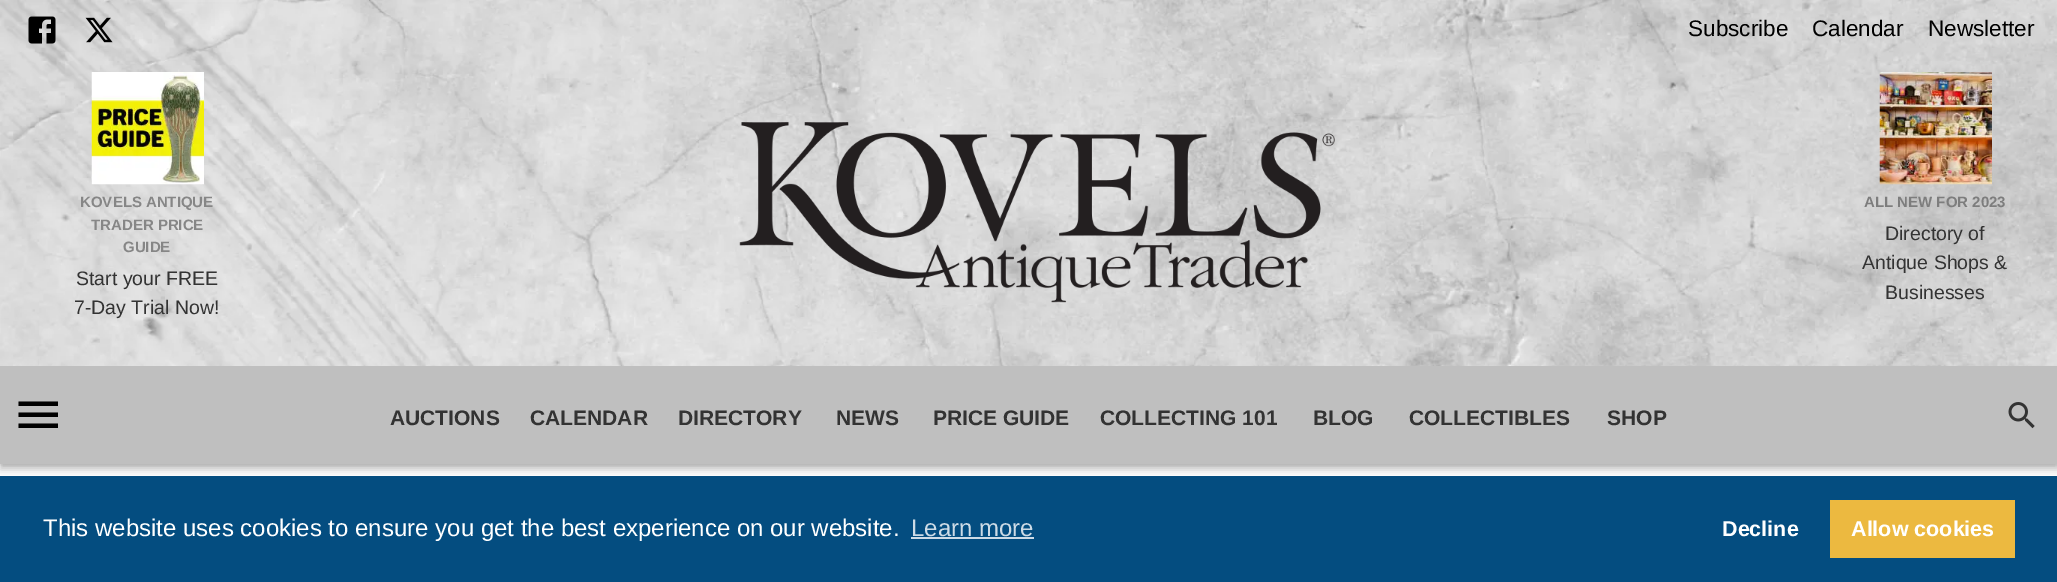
%!PS
<< /PageSize [2057 582] /PageUsesTransparency true >> setpagedevice
/rgb { 3 { 255 div 3 1 roll } repeat setrgbcolor } def
/font { [ exch dup neg 0 0 3 -1 roll 0 0 ] selectfont } def
/alpha { dup .setfillconstantalpha .setstrokeconstantalpha } def
/roundrect { 5 dict begin { /r /h /w /y /x } { exch def } forall
  x r add y moveto x w add y 2 copy h add r arct x w add y h add x 1 index r arct
  x y h add x y r arct x y 2 copy exch w add exch r arct closepath end } def
/shadow { 12 dict begin { /a /b /q /h /w /y /x } { exch def } forall gsave /was 0 def
  9 -2 -9 { dup b mul 4 div /e exch def 1 sub .425 mul 2.718 exch exp 1 add a .99 .min exch div /now exch def
    1 1 now sub 1 was sub div sub alpha /was now def
    w h .min e 2 mul add 0 gt { x e sub y e sub w e 2 mul add h e 2 mul add
      q e add b .6 mul add w h .min 2 div e add .min 0 .max roundrect fill } if } for grestore end } def
/picture { 5 dict begin { /h /w /y /x /name } { exch def } forall
  gsave x y translate w h scale
  w h 8 [w 0 0 h 0 0] name (r) file false 3 colorimage grestore end } def
0 .pushpdf14devicefilter
0 582 translate 1 -1 scale
4 setmiterlimit
255 255 255 rgb
0 0 2057 582 rectfill
0 0 0 rgb
0 2 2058 463 0 7.5 0.12 shadow
0 6 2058 464 0 4 0.14 shadow
2 5 2055 460 0 3 0.2 shadow
(img/1.rgb) 0 0 2057 366 picture
(img/2.rgb) 28 16 28 28 picture
(img/3.rgb) 85 17 28 26 picture
(img/4.rgb) 91 72 113 113 picture
(img/5.rgb) 739 122 596 181 picture
(img/6.rgb) 1879 72 113 113 picture
191 191 191 rgb
0 366 2057 98 rectfill
0 0 0 rgb
18.5 428 moveto 58 428 lineto 58 423.5 lineto 18.5 423.5 lineto closepath 18.5 417 moveto 58 417 lineto 58 412.5 lineto 18.5 412.5 lineto closepath 18.5 401.5 moveto 18.5 406 lineto 58 406 lineto 58 401.5 lineto closepath fill
(img/7.rgb) 2008 402 27 27 picture
[
  [0 476 2057 106 4 77 128]
  [911 537 123 2 205 219 230]
  [1830 500 185 58 236 185 64]
] { aload pop rgb rectfill } forall
/LiberationSans-Regular 22.5 font
0 0 0 rgb
[
  [(Subscribe) 1688 36]
  [(Calendar) 1812 36]
  [(Newsletter) 1928 36]
] { aload pop moveto show } forall
/LiberationSans-Bold 15 font
134 134 134 rgb
[
  [(KOVELS ANTIQUE) 80 207]
  [(TRADER PRICE) 91 230]
  [(GUIDE) 123 252]
] { aload pop moveto show } forall
/LiberationSans-Regular 19.5 font
51 51 51 rgb
76 285 moveto (Start your FREE) show
74 314 moveto (7-Day Trial Now!) show
/LiberationSans-Bold 15 font
125 125 125 rgb
1864 207 moveto (ALL NEW FOR 2023) show
/LiberationSans-Regular 19.5 font
51 51 51 rgb
[
  [(Directory of) 1885 240]
  [(Antique Shops &) 1862 269]
  [(Businesses) 1885 299]
] { aload pop moveto show } forall
/LiberationSans-Bold 21 font
[
  [(AUCTIONS) 390 425]
  [(CALENDAR) 530 425]
  [(DIRECTORY) 678 425]
  [(NEWS) 836 425]
  [(PRICE GUIDE) 933 425]
  [(COLLECTING 101) 1100 425]
  [(BLOG) 1313 425]
  [(COLLECTIBLES) 1409 425]
  [(SHOP) 1607 425]
] { aload pop moveto show } forall
/LiberationSans-Regular 24 font
255 255 255 rgb
43 536 moveto (This website uses cookies to ensure you get the best experience on our website.) show
205 219 230 rgb
911 536 moveto (Learn more) show
/LiberationSans-Bold 21.5 font
255 255 255 rgb
1722 536 moveto (Decline) show
1851 536 moveto (Allow cookies) show
.poppdf14devicefilter showpage
